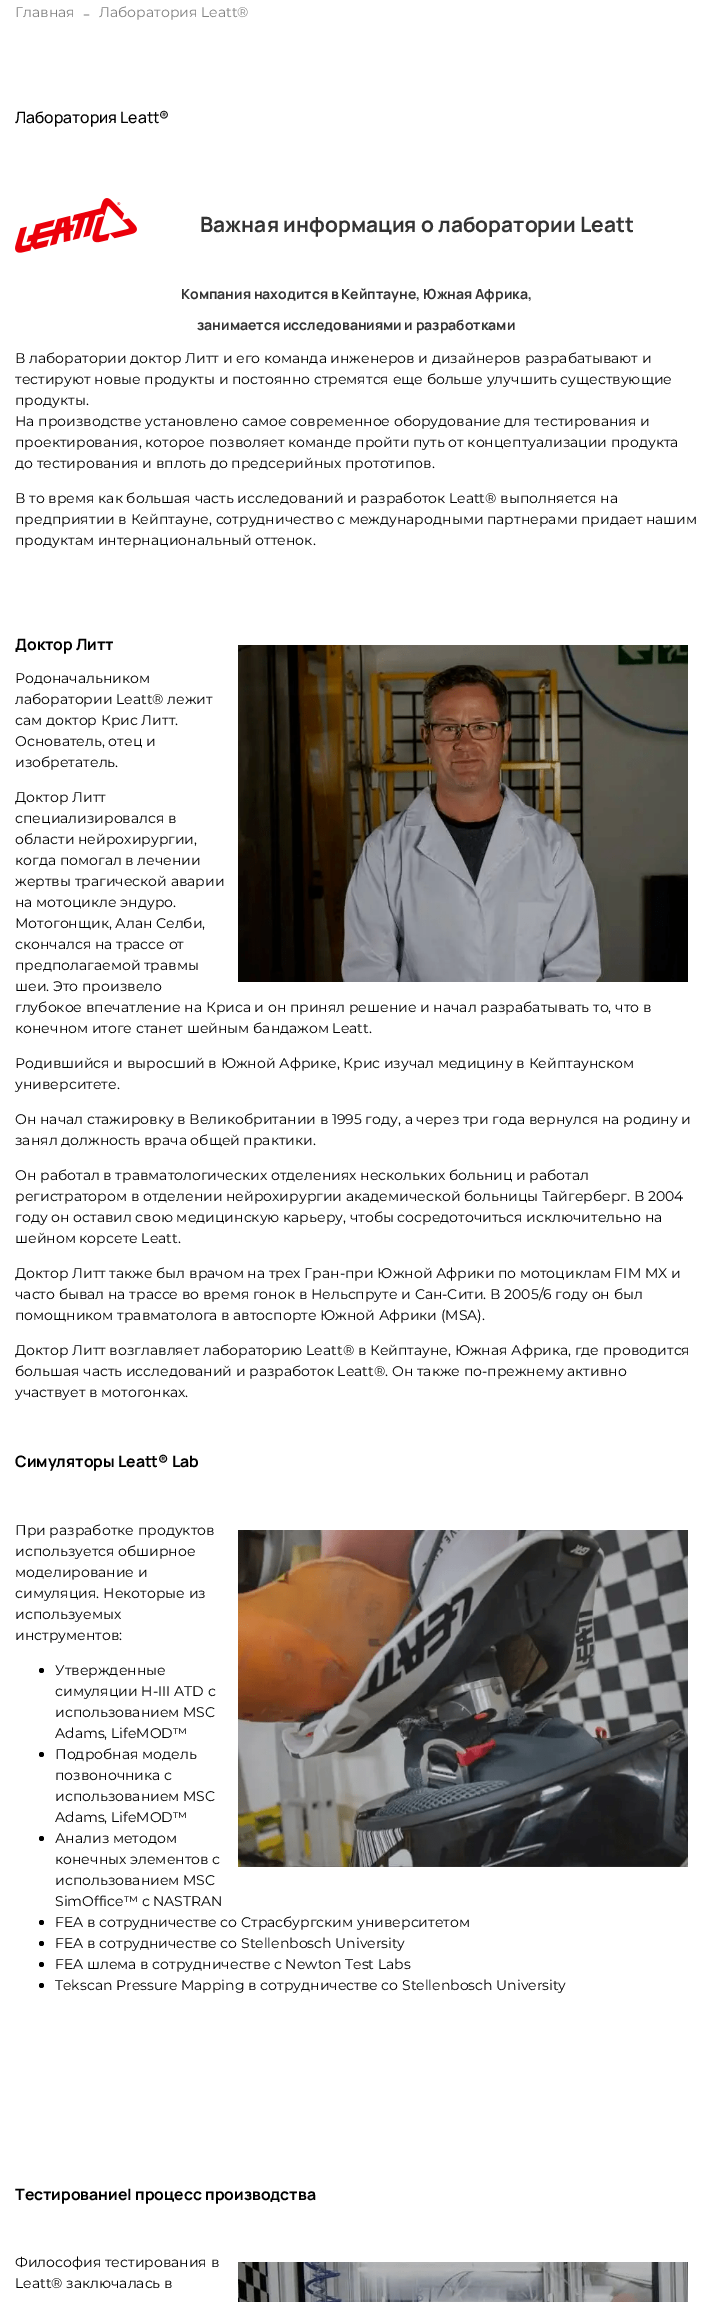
%!PS
<< /PageSize [713 2302] >> setpagedevice
/rgb { 3 { 255 div 3 1 roll } repeat setrgbcolor } def
/font { [ exch dup neg 0 0 3 -1 roll 0 0 ] selectfont } def
/circle { newpath 0 360 arc closepath } def
/picture { 5 dict begin { /h /w /y /x /name } { exch def } forall
  gsave x y translate w h scale
  w h 8 [w 0 0 h 0 0] name (r) file false 3 colorimage grestore end } def
0 2302 translate 1 -1 scale
4 setmiterlimit
255 255 255 rgb
0 0 713 2302 rectfill
(img/1.rgb) 15 198 122 55 picture
(img/2.rgb) 238 645 450 337 picture
(img/3.rgb) 238 1530 450 337 picture
0 0 0 rgb
41.5 1670.5 2.5 circle fill
41.5 1754.5 2.5 circle fill
41.5 1838.5 2.5 circle fill
41.5 1922.5 2.5 circle fill
41.5 1943.5 2.5 circle fill
41.5 1964.5 2.5 circle fill
41.5 1985.5 2.5 circle fill
(img/4.rgb) 238 2262 450 40 picture
/Montserrat-Regular 14 font
128 128 128 rgb
15 17 moveto (Главная) show
/LiberationSerif-Regular 21 font
166 166 166 rgb
83 20 moveto (-) show
/Montserrat-Regular 14 font
128 128 128 rgb
99 17 moveto (Лаборатория Leatt®) show
/Manrope-Medium 15.75 font
0 0 0 rgb
15 123 moveto (Лаборатория Leatt®) show
/Manrope-Bold 21 font
51 51 51 rgb
200 232 moveto (Важная информация о лаборатории Leatt) show
/Manrope-Bold 14 font
181 299 moveto (Компания находится в Кейптауне, Южная Африка,) show
197 330 moveto (занимается исследованиями и разработками) show
/Montserrat-Regular 14 font
0 0 0 rgb
[
  [(В лаборатории доктор Литт и его команда инженеров и дизайнеров разрабатывают и) 15 363]
  [(тестируют новые продукты и постоянно стремятся еще больше улучшить существующие) 15 384]
  [(продукты.) 15 405]
  [(На производстве установлено самое современное оборудование для тестирования и) 15 426]
  [(проектирования, которое позволяет команде пройти путь от концептуализации продукта) 15 447]
  [(до тестирования и вплоть до предсерийных прототипов.) 15 468]
  [(В то время как большая часть исследований и разработок Leatt® выполняется на) 15 503]
  [(предприятии в Кейптауне, сотрудничество с международными партнерами придает нашим) 15 524]
  [(продуктам интернациональный оттенок.) 15 545]
] { aload pop moveto show } forall
/Manrope-Bold 15.75 font
15 650 moveto (Доктор Литт) show
/Montserrat-Regular 14 font
[
  [(Родоначальником) 15 683]
  [(лаборатории Leatt® лежит) 15 704]
  [(сам доктор Крис Литт.) 15 725]
  [(Основатель, отец и) 15 746]
  [(изобретатель.) 15 767]
  [(Доктор Литт) 15 802]
  [(специализировался в) 15 823]
  [(области нейрохирургии,) 15 844]
  [(когда помогал в лечении) 15 865]
  [(жертвы трагической аварии) 15 886]
  [(на мотоцикле эндуро.) 15 907]
  [(Мотогонщик, Алан Селби,) 15 928]
  [(скончался на трассе от) 15 949]
  [(предполагаемой травмы) 15 970]
  [(шеи. Это произвело) 15 991]
  [(глубокое впечатление на Криса и он принял решение и начал разрабатывать то, что в) 15 1012]
  [(конечном итоге станет шейным бандажом Leatt.) 15 1033]
  [(Родившийся и выросший в Южной Африке, Крис изучал медицину в Кейптаунском) 15 1068]
  [(университете.) 15 1089]
  [(Он начал стажировку в Великобритании в 1995 году, а через три года вернулся на родину и) 15 1124]
  [(занял должность врача общей практики.) 15 1145]
  [(Он работал в травматологических отделениях нескольких больниц и работал) 15 1180]
  [(регистратором в отделении нейрохирургии академической больницы Тайгерберг. В 2004) 15 1201]
  [(году он оставил свою медицинскую карьеру, чтобы сосредоточиться исключительно на) 15 1222]
  [(шейном корсете Leatt.) 15 1243]
  [(Доктор Литт также был врачом на трех Гран-при Южной Африки по мотоциклам FIM MX и) 15 1278]
  [(часто бывал на трассе во время гонок в Нельспруте и Сан-Сити. В 2005/6 году он был) 15 1299]
  [(помощником травматолога в автоспорте Южной Африки \(MSA\).) 15 1320]
  [(Доктор Литт возглавляет лабораторию Leatt® в Кейптауне, Южная Африка, где проводится) 15 1355]
  [(большая часть исследований и разработок Leatt®. Он также по-прежнему активно) 15 1376]
  [(участвует в мотогонках.) 15 1397]
] { aload pop moveto show } forall
/Manrope-Bold 15.75 font
15 1467 moveto (Симуляторы Leatt® Lab) show
/Montserrat-Regular 14 font
[
  [(При разработке продуктов) 15 1535]
  [(используется обширное) 15 1556]
  [(моделирование и) 15 1577]
  [(симуляция. Некоторые из) 15 1598]
  [(используемых) 15 1619]
  [(инструментов:) 15 1640]
  [(Утвержденные) 55 1675]
  [(симуляции H-III ATD с) 55 1696]
  [(использованием MSC) 55 1717]
  [(Adams, LifeMOD™) 55 1738]
  [(Подробная модель) 55 1759]
  [(позвоночника с) 55 1780]
  [(использованием MSC) 55 1801]
  [(Adams, LifeMOD™) 55 1822]
  [(Анализ методом) 55 1843]
  [(конечных элементов с) 55 1864]
  [(использованием MSC) 55 1885]
  [(SimOffice™ с NASTRAN) 55 1906]
  [(FEA в сотрудничестве со Страсбургским университетом) 55 1927]
  [(FEA в сотрудничестве со Stellenbosch University) 55 1948]
  [(FEA шлема в сотрудничестве с Newton Test Labs) 55 1969]
  [(Tekscan Pressure Mapping в сотрудничестве со Stellenbosch University) 55 1990]
] { aload pop moveto show } forall
/Manrope-Bold 15.75 font
15 2200 moveto (Тестирование| процесс производства) show
/Montserrat-Regular 14 font
15 2267 moveto (Философия тестирования в) show
15 2288 moveto (Leatt® заключалась в) show
showpage
